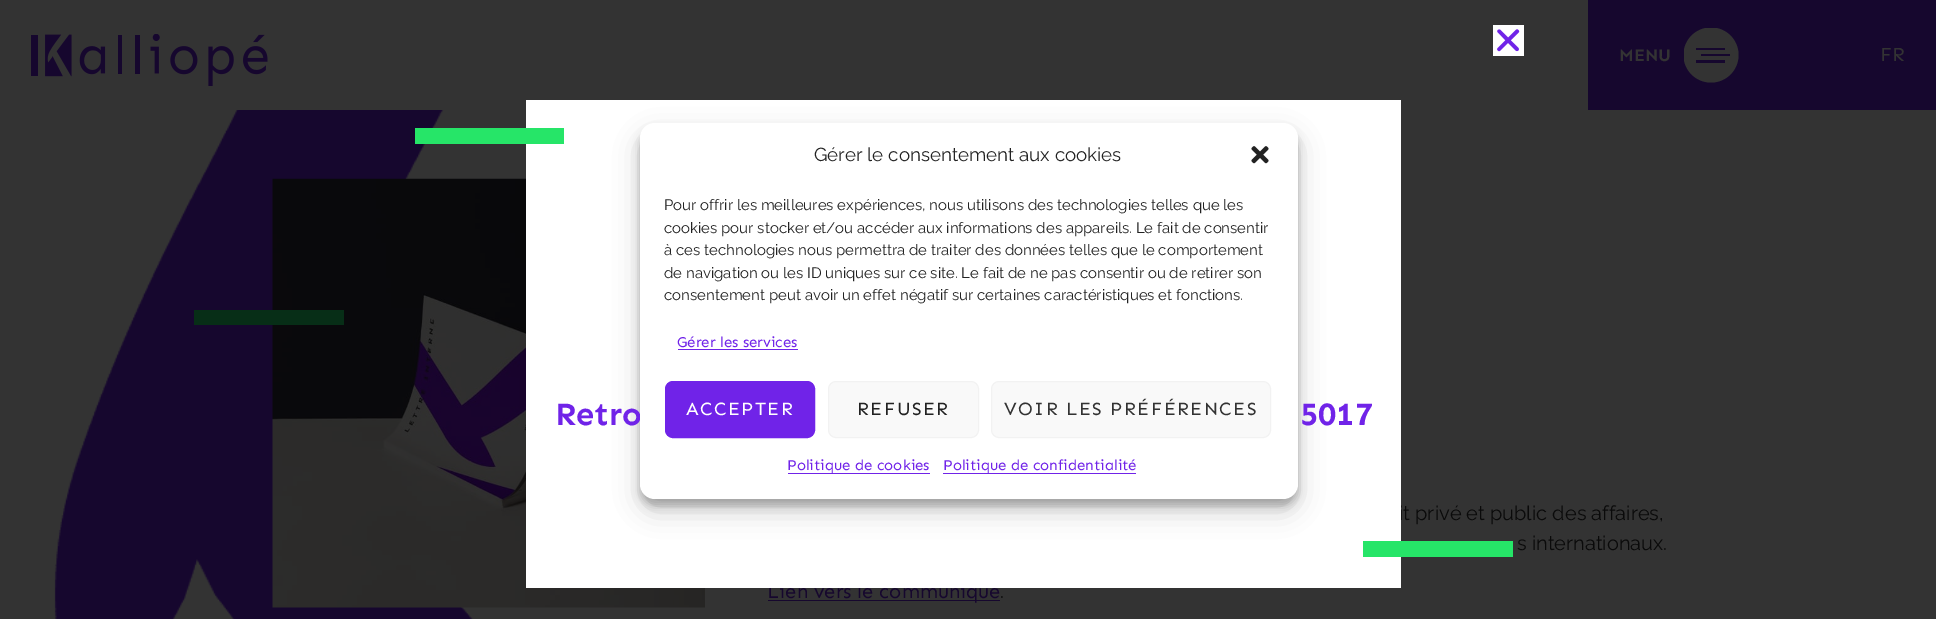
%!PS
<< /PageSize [1936 619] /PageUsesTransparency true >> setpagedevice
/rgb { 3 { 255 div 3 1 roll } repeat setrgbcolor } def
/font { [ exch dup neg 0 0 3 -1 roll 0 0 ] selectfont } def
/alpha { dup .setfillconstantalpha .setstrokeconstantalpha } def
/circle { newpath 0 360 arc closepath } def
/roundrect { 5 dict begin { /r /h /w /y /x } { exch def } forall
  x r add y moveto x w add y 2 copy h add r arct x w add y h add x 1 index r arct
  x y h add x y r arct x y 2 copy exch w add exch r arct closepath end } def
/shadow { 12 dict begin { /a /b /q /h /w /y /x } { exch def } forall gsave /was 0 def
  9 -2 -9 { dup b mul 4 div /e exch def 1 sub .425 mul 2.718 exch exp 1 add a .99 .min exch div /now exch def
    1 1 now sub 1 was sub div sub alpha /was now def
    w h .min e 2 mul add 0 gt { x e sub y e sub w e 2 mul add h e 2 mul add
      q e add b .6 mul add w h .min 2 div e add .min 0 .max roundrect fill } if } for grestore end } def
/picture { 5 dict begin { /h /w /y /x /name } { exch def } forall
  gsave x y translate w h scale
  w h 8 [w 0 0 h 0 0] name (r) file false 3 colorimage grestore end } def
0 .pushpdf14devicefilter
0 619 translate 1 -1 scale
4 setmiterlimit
51 51 51 rgb
0 0 1936 619 rectfill
(img/1.rgb) 54 110 419 509 picture
(img/2.rgb) 31 34 237 52 picture
22 7 46 rgb
1588 0 348 110 rectfill
gsave
1684 28 55 55 rectclip
51 51 51 rgb
1711 55 27.5 circle fill
grestore
[
  [1696 48 29 2 22 7 46]
  [1701 54 29 2 22 7 46]
  [1696 60 29 3 22 7 46]
  [1493 25 31 31 255 255 255]
] { aload pop rgb rectfill } forall
(img/4.rgb) 1497 29 23 23 picture
(img/5.rgb) 272 178 433 430 picture
7 46 23 rgb
194 310 150 15 rectfill
22 7 46 rgb
768 600 232 1 rectfill
/Sen-Bold 17.5 font
51 51 51 rgb
1619 61 moveto (MENU) show
/Sen-Regular 20 font
1880 61 moveto (FR) show
/Raleway-Thin 20 font
10 10 10 rgb
1399 520 moveto (it privé et public des affaires,) show
1517 550 moveto (s internationaux.) show
/Sen-Regular 20 font
22 7 46 rgb
767 598 moveto (Lien vers le communiqué) show
255 255 255 rgb
526 100 875 488 rectfill
0 0 0 rgb
640 135 658 376 15 12.5 0.19 shadow
640 130 658 376 15 4 0.23 shadow
/Sen-Bold 32.5 font
112 35 232 rgb
555 425 moveto (Retro) show
255 255 255 rgb
640 123 658 376 15 roundrect fill
/Raleway-Thin 15 font
34 34 34 rgb
[
  [(consentement peut avoir un effet négatif sur certaines caractéristiques et fonctions.) 664 300]
  [(de navigation ou les ID uniques sur ce site. Le fait de ne pas consentir ou de retirer son) 664 278]
  [(à ces technologies nous permettra de traiter des données telles que le comportement) 664 255]
  [(cookies pour stocker et/ou accéder aux informations des appareils. Le fait de consentir) 664 233]
  [(Pour offrir les meilleures expériences, nous utilisons des technologies telles que les) 664 210]
] { aload pop moveto show } forall
(img/3.rgb) 1251 146 18 18 picture
112 35 232 rgb
943 473 193 1 rectfill
/Sen-Regular 15 font
943 470 moveto (Politique de confidentialité) show
788 473 142 1 rectfill
787 470 moveto (Politique de cookies) show
249 249 249 rgb
991.5 381.5 279 56 7.5 roundrect gsave fill grestore
242 242 242 rgb
stroke
/Sen-Regular 18.75 font
51 51 51 rgb
1004 415 moveto 1.5 0 (VOIR LES PRÉFÉRENCES) ashow
249 249 249 rgb
828.5 381.5 150 56 7.5 roundrect gsave fill grestore
242 242 242 rgb
stroke
34 34 34 rgb
857 415 moveto 1.5 0 (REFUSER) ashow
112 35 232 rgb
665.5 381.5 149 56 7.5 roundrect gsave fill grestore
stroke
255 255 255 rgb
686 415 moveto 1.5 0 (ACCEPTER) ashow
/Sen-Regular 15 font
112 35 232 rgb
677 347 moveto (Gérer les services) show
678 349 120 1 rectfill
/Raleway-Thin 18.75 font
34 34 34 rgb
814 161 moveto (Gérer le consentement aux cookies) show
38 229 104 rgb
1363 541 150 16 rectfill
415 128 149 16 rectfill
/Sen-Bold 32.5 font
112 35 232 rgb
1300 425 moveto (5017) show
/Raleway-Thin 20 font
10 10 10 rgb
1000 598 moveto (.) show
.poppdf14devicefilter showpage
